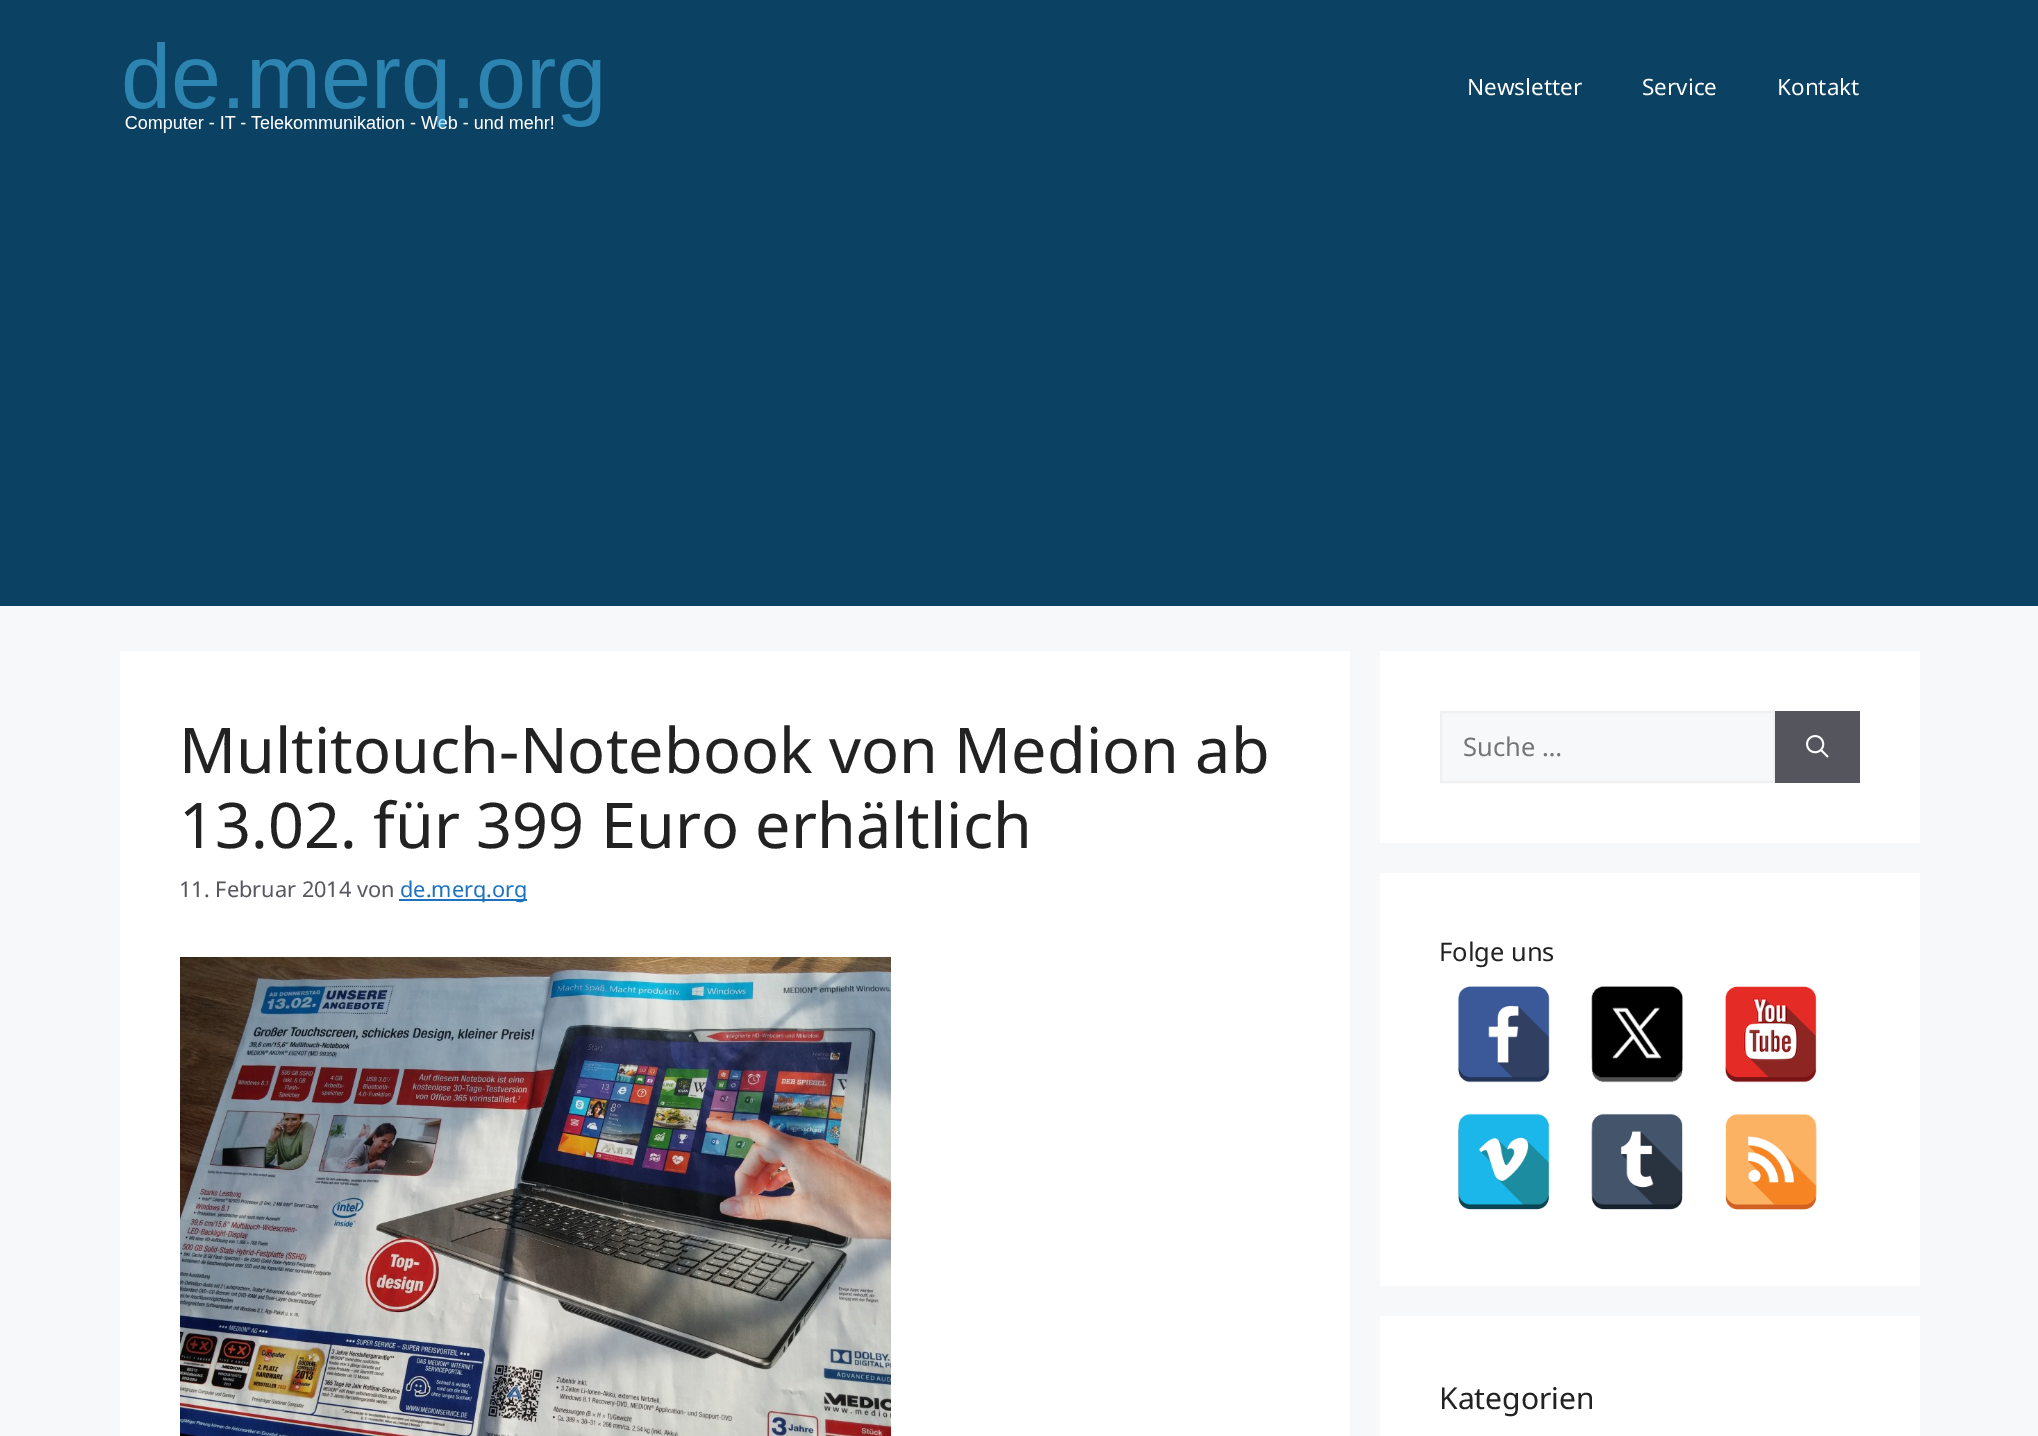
%!PS
<< /PageSize [2038 1436] >> setpagedevice
/rgb { 3 { 255 div 3 1 roll } repeat setrgbcolor } def
/font { [ exch dup neg 0 0 3 -1 roll 0 0 ] selectfont } def
/picture { 5 dict begin { /h /w /y /x /name } { exch def } forall
  gsave x y translate w h scale
  w h 8 [w 0 0 h 0 0] name (r) file false 3 colorimage grestore end } def
0 1436 translate 1 -1 scale
4 setmiterlimit
247 248 249 rgb
0 0 2038 1436 rectfill
11 65 99 rgb
0 0 2038 606 rectfill
(img/1.rgb) 124 42 477 91 picture
255 255 255 rgb
120 651 1230 785 rectfill
30 115 190 rgb
399 899 128 2 rectfill
(img/2.rgb) 180 957 711 479 picture
255 255 255 rgb
1380 651 540 192 rectfill
247 248 249 rgb
1441 712 moveto 1774 712 lineto 1774 782 lineto 1441 782 lineto closepath gsave fill grestore
240 240 240 rgb
2 setlinewidth
stroke
85 85 94 rgb
1775 711 85 72 rectfill
(img/3.rgb) 1806 735 23 23 picture
255 255 255 rgb
1380 873 540 413 rectfill
(img/4.rgb) 1458 986 92 97 picture
(img/5.rgb) 1591 986 92 97 picture
(img/6.rgb) 1725 986 92 97 picture
(img/7.rgb) 1458 1113 92 97 picture
(img/8.rgb) 1591 1113 92 97 picture
(img/9.rgb) 1725 1114 92 96 picture
1380 1316 540 120 rectfill
/NotoSans-Regular 22.5 font
[
  [(Newsletter) 1467 95]
  [(Service) 1642 95]
  [(Kontakt) 1777 95]
] { aload pop moveto show } forall
/NotoSans-Regular 63 font
34 34 34 rgb
179 773 moveto (Multitouch-Notebook von Medion ab) show
179 848 moveto (13.02. für 399 Euro erhältlich) show
/NotoSans-Regular 21.75 font
87 87 96 rgb
179 897 moveto (11. Februar 2014 von) show
30 115 190 rgb
400 897 moveto (de.merq.org) show
/NotoSans-Regular 25.5 font
117 117 117 rgb
1463 756 moveto (Suche …) show
34 34 34 rgb
1439 961 moveto (Folge uns) show
/NotoSans-Regular 30 font
1439 1409 moveto (Kategorien) show
showpage
